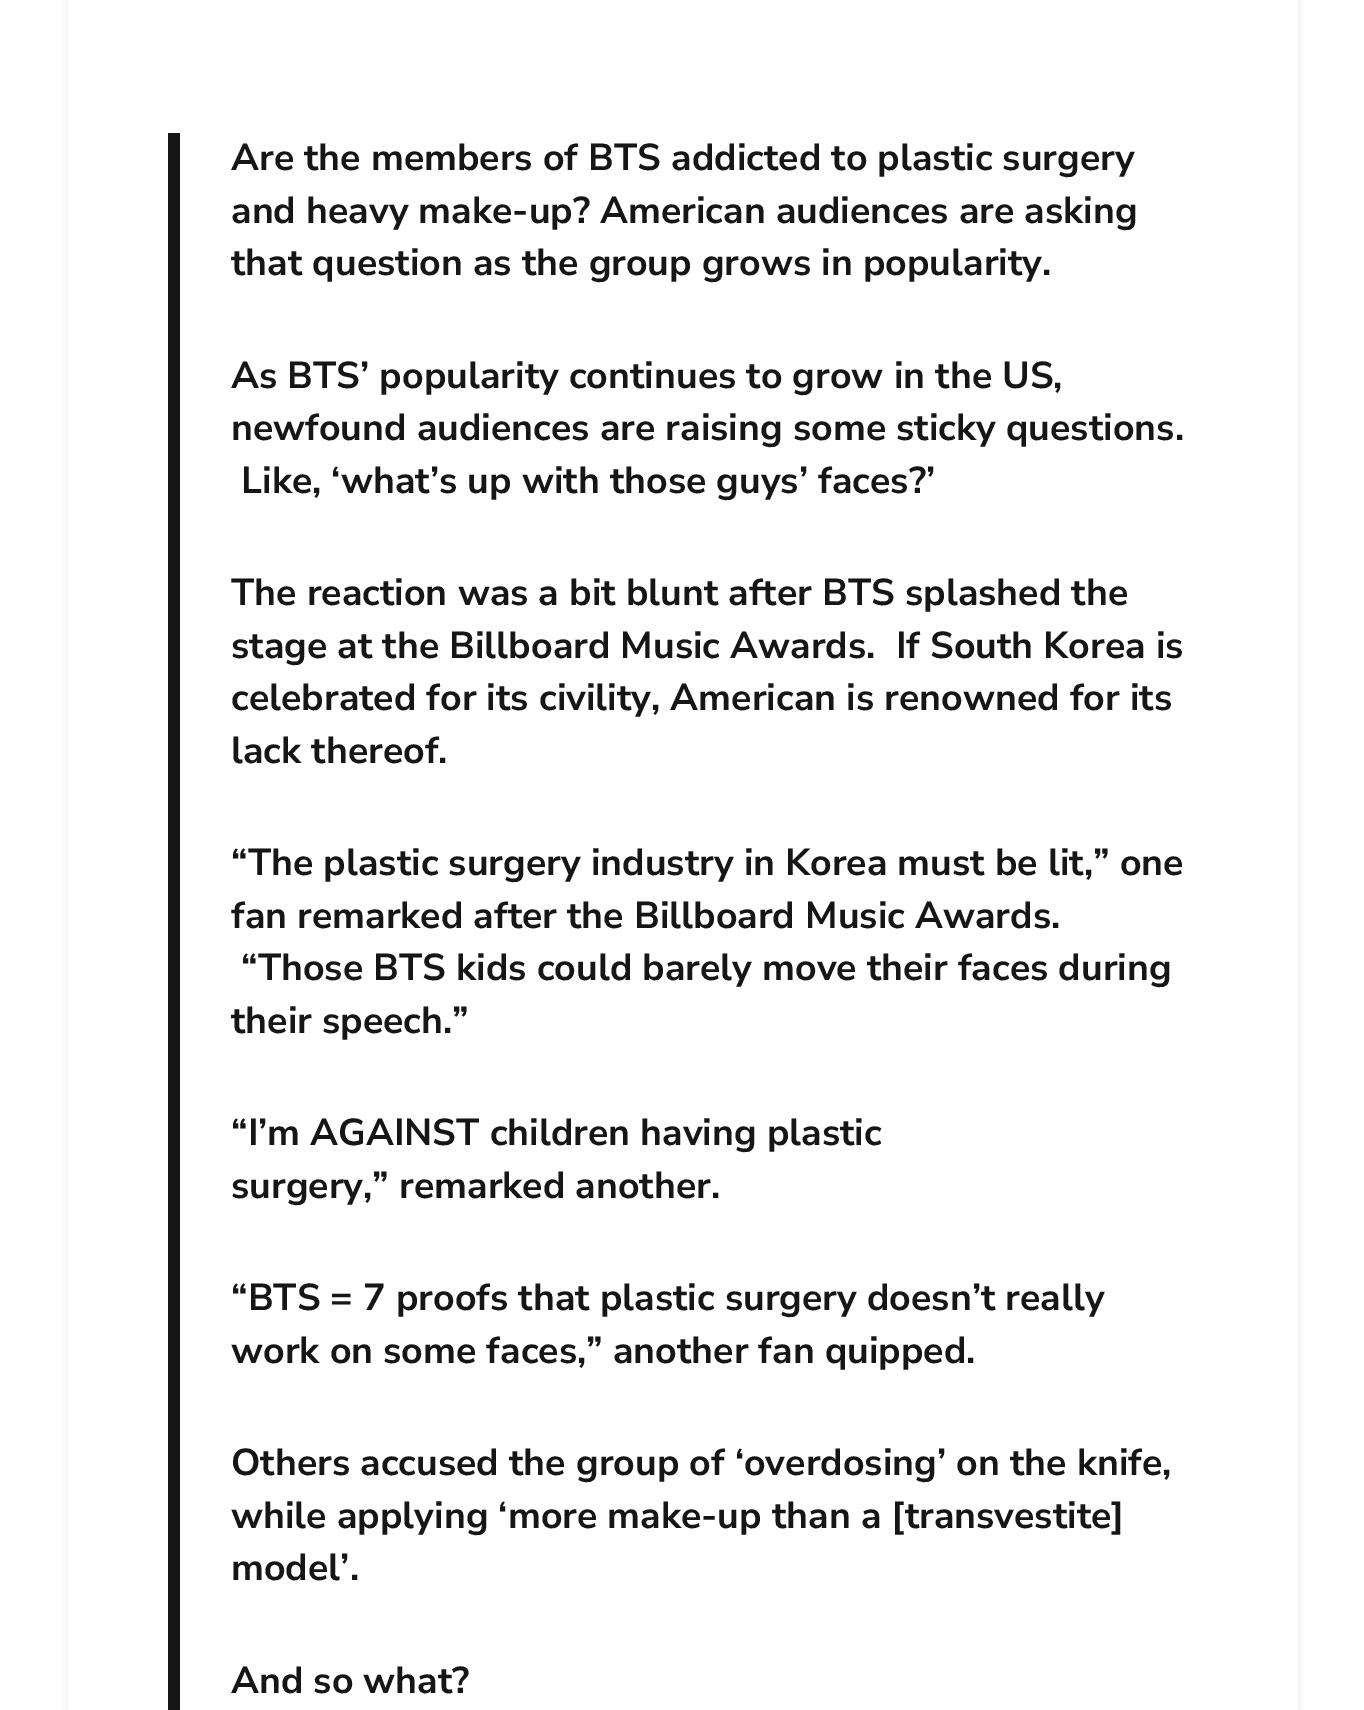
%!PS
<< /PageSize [1364 1710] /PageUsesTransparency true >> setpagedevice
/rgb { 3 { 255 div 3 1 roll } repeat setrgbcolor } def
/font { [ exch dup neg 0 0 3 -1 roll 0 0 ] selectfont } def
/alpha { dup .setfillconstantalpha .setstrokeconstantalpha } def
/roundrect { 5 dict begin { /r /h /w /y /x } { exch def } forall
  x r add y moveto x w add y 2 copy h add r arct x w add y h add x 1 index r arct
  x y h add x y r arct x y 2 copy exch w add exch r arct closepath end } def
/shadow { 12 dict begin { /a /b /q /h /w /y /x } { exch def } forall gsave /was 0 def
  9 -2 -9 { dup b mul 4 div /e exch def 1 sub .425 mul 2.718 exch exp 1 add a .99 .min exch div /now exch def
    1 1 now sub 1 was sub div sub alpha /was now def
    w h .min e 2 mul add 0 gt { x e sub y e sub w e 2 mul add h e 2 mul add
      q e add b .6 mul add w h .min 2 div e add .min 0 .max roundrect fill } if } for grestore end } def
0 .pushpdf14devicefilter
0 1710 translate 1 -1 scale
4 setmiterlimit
255 255 255 rgb
0 0 1364 1710 rectfill
0 0 0 rgb
68 -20 1230 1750 8 4 0.1 shadow
255 255 255 rgb
68 0 1230 1710 rectfill
22 22 22 rgb
168 133 12 1577 rectfill
/NunitoSans-Bold 37.5 font
[
  [(Are the members of BTS addicted to plastic surgery) 231 170]
  [(and heavy make-up? American audiences are asking) 231 223]
  [(that question as the group grows in popularity.) 231 275]
  [(As BTS’ popularity continues to grow in the US,) 231 388]
  [(newfound audiences are raising some sticky questions.) 231 440]
  [(Like, ‘what’s up with those guys’ faces?’) 241 493]
  [(The reaction was a bit blunt after BTS splashed the) 231 605]
  [(stage at the Billboard Music Awards.  If South Korea is) 231 658]
  [(celebrated for its civility, American is renowned for its) 231 710]
  [(lack thereof.) 231 763]
  [(“The plastic surgery industry in Korea must be lit,” one) 231 875]
  [(fan remarked after the Billboard Music Awards.) 231 928]
  [(“Those BTS kids could barely move their faces during) 241 980]
  [(their speech.”) 231 1033]
  [(“I’m AGAINST children having plastic) 231 1145]
  [(surgery,” remarked another.) 231 1198]
  [(“BTS = 7 proofs that plastic surgery doesn’t really) 231 1310]
  [(work on some faces,” another fan quipped.) 231 1363]
  [(Others accused the group of ‘overdosing’ on the knife,) 231 1475]
  [(while applying ‘more make-up than a [transvestite]) 231 1528]
  [(model’.) 231 1580]
  [(And so what?) 231 1693]
] { aload pop moveto show } forall
.poppdf14devicefilter showpage
